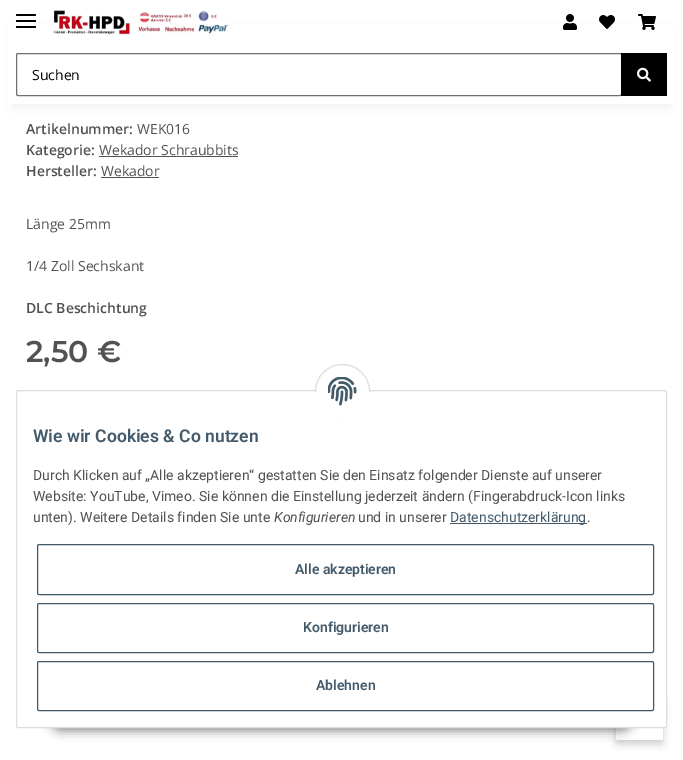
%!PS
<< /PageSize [683 760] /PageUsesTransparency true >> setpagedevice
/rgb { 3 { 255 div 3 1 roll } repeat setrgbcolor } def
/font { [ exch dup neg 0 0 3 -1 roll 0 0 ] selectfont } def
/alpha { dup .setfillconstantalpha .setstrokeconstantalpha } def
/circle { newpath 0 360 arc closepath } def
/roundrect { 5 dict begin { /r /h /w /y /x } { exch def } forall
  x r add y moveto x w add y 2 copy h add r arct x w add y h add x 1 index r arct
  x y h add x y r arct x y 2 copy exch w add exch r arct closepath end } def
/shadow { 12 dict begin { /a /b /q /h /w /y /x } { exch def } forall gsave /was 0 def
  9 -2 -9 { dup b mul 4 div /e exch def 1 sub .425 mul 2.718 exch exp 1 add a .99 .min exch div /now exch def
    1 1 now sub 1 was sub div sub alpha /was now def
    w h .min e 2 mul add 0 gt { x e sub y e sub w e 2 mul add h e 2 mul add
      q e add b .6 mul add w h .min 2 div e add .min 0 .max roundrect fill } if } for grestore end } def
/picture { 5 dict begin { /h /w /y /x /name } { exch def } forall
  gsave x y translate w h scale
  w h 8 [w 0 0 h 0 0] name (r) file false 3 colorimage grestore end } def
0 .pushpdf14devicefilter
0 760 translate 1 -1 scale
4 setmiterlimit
255 255 255 rgb
0 0 683 760 rectfill
0 0 0 rgb
12 28 659 80 0 4.5 0.06 shadow
255 255 255 rgb
8 24 667 80 rectfill
0 0 0 rgb
16 20 20 2 1 roundrect fill
16 14 20 2 1 roundrect fill
16 26 20 2 1 roundrect fill
(img/1.rgb) 54 10 175 25 picture
(img/2.rgb) 563 14 14 16 picture
(img/3.rgb) 599 15 16 14 picture
(img/4.rgb) 638 14 18 16 picture
112 112 112 rgb
16.5 53.5 605 42 1.5 roundrect stroke
0 0 0 rgb
621 53 46 43 rectfill
(img/5.rgb) 637 67 14 15 picture
82 82 82 rgb
99 156 139 1 rectfill
101 177 58 1 rectfill
0 0 0 rgb
616 700 47 44 2 4 0.2 shadow
255 255 255 rgb
616 696 47 44 2 roundrect fill
0 0 0 rgb
49 699 585 32 16 5 0.45 shadow
255 255 255 rgb
16.5 390.5 650 337 1.5 roundrect gsave fill grestore
221 221 221 rgb
stroke
255 255 255 rgb
342.5 391.5 27 circle gsave fill grestore
221 221 221 rgb
stroke
255 255 255 rgb
315 392 55 27 rectfill
(img/6.rgb) 328 377 29 29 picture
67 90 107 rgb
450 523 137 1 rectfill
37.5 544.5 616 50 1.5 roundrect stroke
37.5 603.5 616 49 1.5 roundrect stroke
37.5 661.5 616 49 1.5 roundrect stroke
/OpenSans-Regular 14 font
0 0 0 rgb
32 80 moveto (Suchen) show
/OpenSans-SemiBold 14 font
82 82 82 rgb
26 134 moveto (Artikelnummer:) show
/OpenSans-Regular 14 font
137 134 moveto (WEK016) show
/OpenSans-SemiBold 14 font
26 155 moveto (Kategorie:) show
/OpenSans-Regular 14 font
99 155 moveto (Wekador Schraubbits) show
/OpenSans-SemiBold 14 font
26 176 moveto (Hersteller:) show
/OpenSans-Regular 14 font
[
  [(Wekador) 101 176]
  [(Länge 25mm) 26 229]
  [(1/4 Zoll Sechskant) 26 271]
] { aload pop moveto show } forall
/OpenSans-SemiBold 14 font
26 313 moveto (DLC Beschichtung) show
/Montserrat-SemiBold 30 font
26 362 moveto (2,50 €) show
/Roboto-SemiBold 17.6 font
67 90 107 rgb
33 442 moveto (Wie wir Cookies & Co nutzen) show
/Roboto-Regular 14 font
82 82 82 rgb
[
  [(Durch Klicken auf „Alle akzeptieren“ gestatten Sie den Einsatz folgender Dienste auf unserer) 33 480]
  [(Website: YouTube, Vimeo. Sie können die Einstellung jederzeit ändern \(Fingerabdruck-Icon links) 33 501]
  [(unten\). Weitere Details finden Sie unte) 33 522]
] { aload pop moveto show } forall
/Roboto-Italic 14 font
274 522 moveto (Konfigurieren) show
/Roboto-Regular 14 font
358 522 moveto (und in unserer) show
67 90 107 rgb
450 522 moveto (Datenschutzerklärung) show
82 82 82 rgb
587 522 moveto (.) show
/Roboto-SemiBold 14 font
67 90 107 rgb
[
  [(Alle akzeptieren) 295 574]
  [(Konfigurieren) 303 632]
  [(Ablehnen) 316 690]
] { aload pop moveto show } forall
.poppdf14devicefilter showpage
